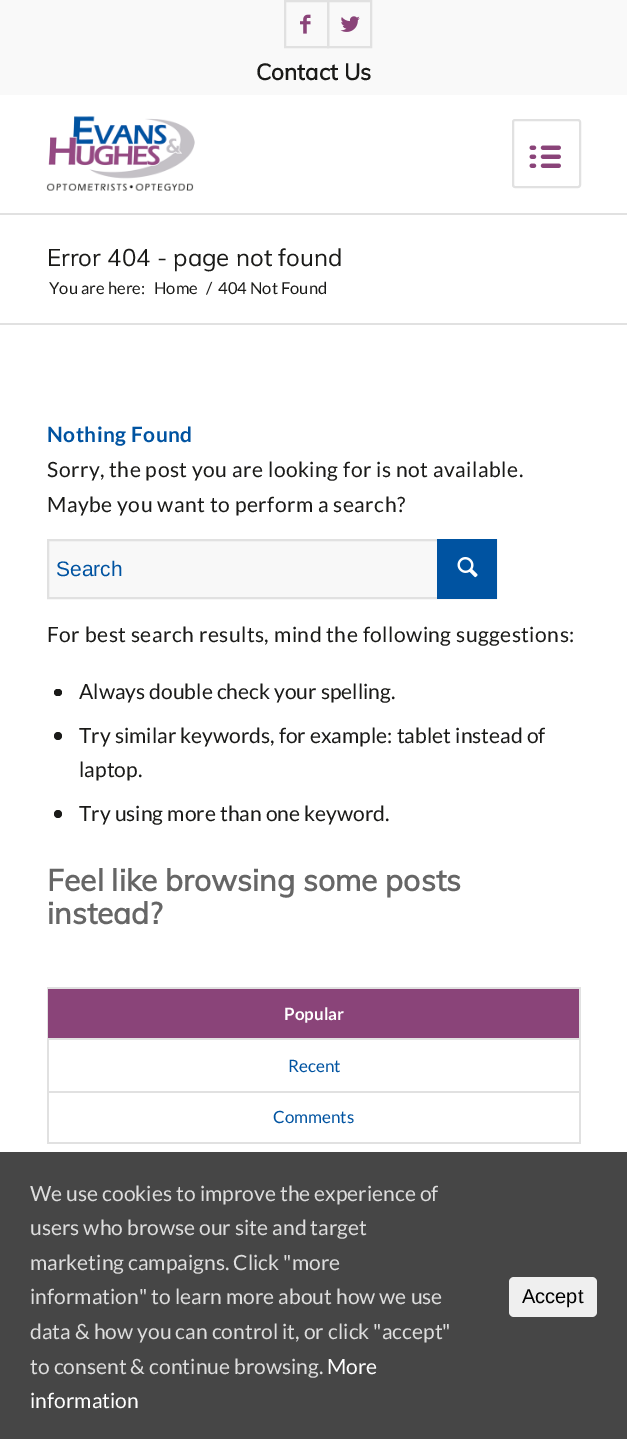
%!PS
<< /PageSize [627 1439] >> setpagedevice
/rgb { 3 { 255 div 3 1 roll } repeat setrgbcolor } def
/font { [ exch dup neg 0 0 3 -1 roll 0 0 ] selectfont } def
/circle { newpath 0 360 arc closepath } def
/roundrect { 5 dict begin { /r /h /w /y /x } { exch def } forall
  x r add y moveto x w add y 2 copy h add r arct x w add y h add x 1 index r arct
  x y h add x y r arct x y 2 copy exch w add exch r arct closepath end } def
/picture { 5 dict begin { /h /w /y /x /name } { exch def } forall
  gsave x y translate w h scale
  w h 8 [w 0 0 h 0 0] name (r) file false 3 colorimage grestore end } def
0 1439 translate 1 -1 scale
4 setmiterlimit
255 255 255 rgb
0 0 627 1439 rectfill
249 249 249 rgb
0 0 627 95 rectfill
225 225 225 rgb
2 setlinewidth
285 1 43 46 rectstroke
(img/1.rgb) 300 14 11 20 picture
328 1 43 46 rectstroke
(img/2.rgb) 340 16 20 16 picture
0 213 627 2 rectfill
(img/3.rgb) 46 116 149 75 picture
513 120 67 67 2 roundrect stroke
(img/4.rgb) 529 145 32 23 picture
0 323 627 2 rectfill
248 248 248 rgb
49 541 388 56 rectfill
225 225 225 rgb
48 540 448 58 rectstroke
0 83 161 rgb
437 539 60 60 rectfill
(img/5.rgb) 457 557 21 21 picture
26 26 24 rgb
54 689 8 7 3.5 roundrect fill
58 736 4 circle fill
58 814 4 circle fill
[
  [579 987 2 156 225 225 225]
  [47 1142 534 2 225 225 225]
  [47 987 2 156 225 225 225]
  [48 989 531 49 138 68 121]
  [48 987 531 2 225 225 225]
  [48 1038 531 2 225 225 225]
  [48 1091 531 2 225 225 225]
  [0 1152 627 287 70 70 70]
] { aload pop rgb rectfill } forall
239 239 239 rgb
509 1277 88 40 5 roundrect fill
/Muli-Bold 22.5 font
26 26 24 rgb
256 80 moveto (Contact Us) show
/Muli-Regular 24 font
47 266 moveto (Error 404 - page not found) show
/Lato-Regular 16.5 font
[
  [(You are here:) 49 294]
  [(Home) 154 294]
  [(/) 206 294]
  [(404 Not Found) 218 294]
] { aload pop moveto show } forall
/Lato-Bold 21 font
0 83 161 rgb
47 442 moveto 0.45 0 (Nothing Found) ashow
/Lato-Regular 21 font
26 26 24 rgb
47 477 moveto 0.45 0 (Sorry, the post you are looking for is not available.) ashow
47 512 moveto 0.45 0 (Maybe you want to perform a search?) ashow
/LiberationSans-Regular 21 font
0 83 161 rgb
56 576 moveto (Search) show
/Lato-Regular 21 font
26 26 24 rgb
47 642 moveto 0.45 0 (For best search results, mind the following suggestions:) ashow
[
  [(Always double check your spelling.) 79 699]
  [(Try similar keywords, for example: tablet instead of) 79 743]
  [(laptop.) 79 777]
  [(Try using more than one keyword.) 79 821]
] { aload pop moveto show } forall
/Muli-Bold 30 font
102 102 102 rgb
47 891 moveto (Feel like browsing some posts) show
47 924 moveto (instead?) show
/Lato-Bold 17 font
255 255 255 rgb
284 1020 moveto (Popular) show
/Lato-Regular 17 font
0 83 161 rgb
288 1072 moveto (Recent) show
273 1123 moveto (Comments) show
/Lato-Regular 21 font
221 221 221 rgb
[
  [(We use cookies to improve the experience of) 30 1201]
  [(users who browse our site and target) 30 1235]
  [(marketing campaigns. Click "more) 30 1270]
  [(information" to learn more about how we use) 30 1304]
  [(data & how you can control it, or click "accept") 30 1339]
  [(to consent & continue browsing.) 30 1374]
] { aload pop moveto show } forall
255 255 255 rgb
327 1374 moveto (More) show
30 1408 moveto (information) show
/LiberationSans-Regular 20 font
0 0 0 rgb
522 1303 moveto (Accept) show
showpage
